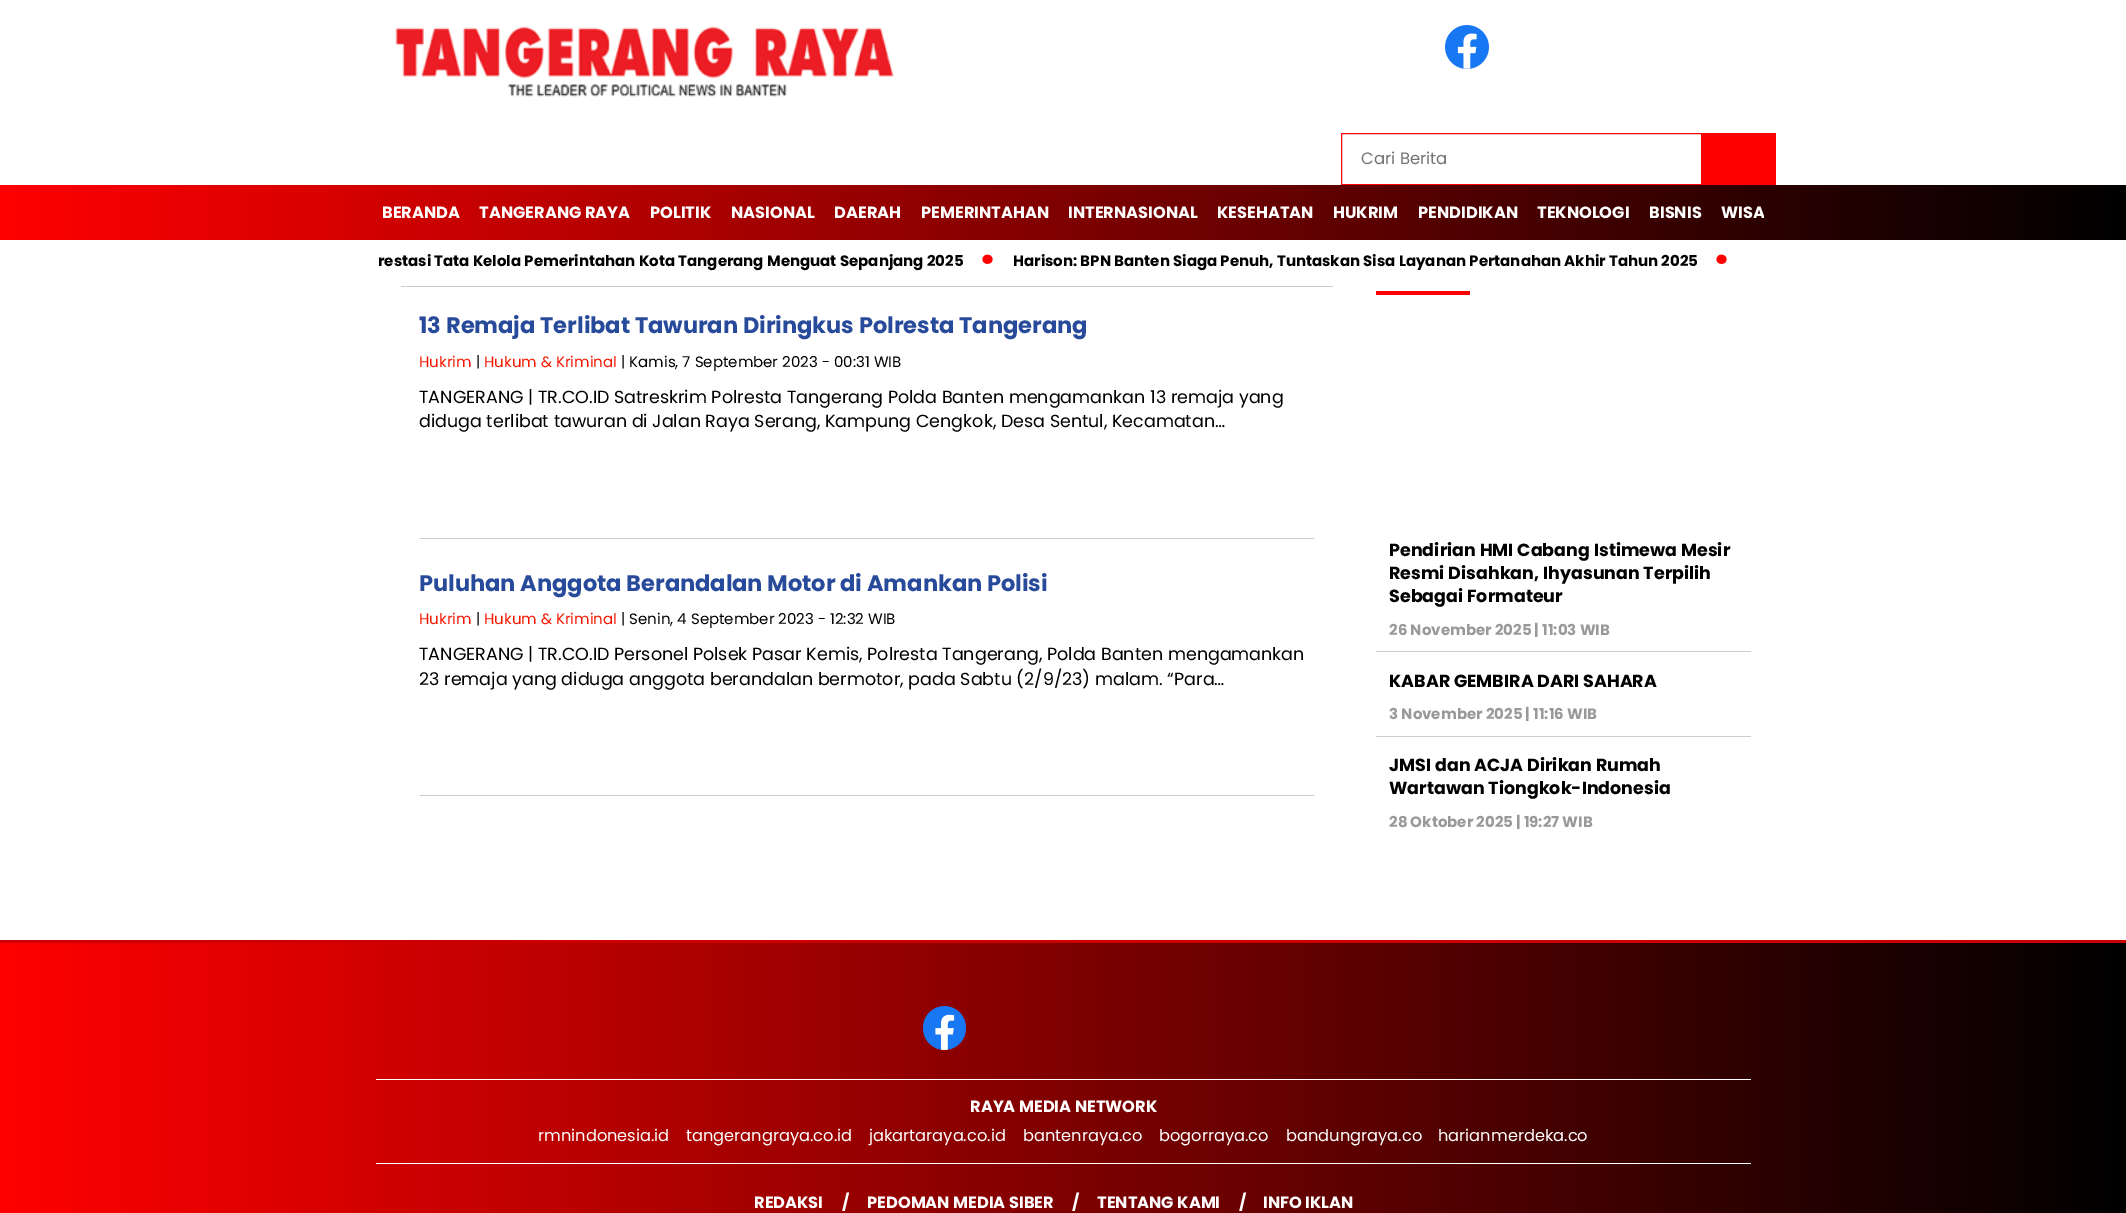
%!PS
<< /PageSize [2126 1213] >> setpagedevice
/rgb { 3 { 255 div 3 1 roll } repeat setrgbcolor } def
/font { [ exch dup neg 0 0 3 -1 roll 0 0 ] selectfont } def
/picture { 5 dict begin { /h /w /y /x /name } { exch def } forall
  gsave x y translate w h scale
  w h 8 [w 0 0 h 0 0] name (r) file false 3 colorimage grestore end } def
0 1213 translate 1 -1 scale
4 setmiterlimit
255 255 255 rgb
0 0 2126 1213 rectfill
(img/1.rgb) 395 26 499 71 picture
(img/2.rgb) 1445 25 44 44 picture
255 0 0 rgb
1341.5 133.5 361 51 rectstroke
1701 133 75 52 rectfill
gsave 0 185 moveto 2126 185 lineto 2126 240 lineto 0 240 lineto closepath clip newpath
<< /ShadingType 2 /ColorSpace /DeviceRGB /Coords [0 213 2126 212] /Extend [true true] /Function << /FunctionType 2 /Domain [0 1] /C0 [1 0 0] /C1 [0 0 0] /N 1 >> >> shfill grestore
[
  [401 286 932 1 204 204 204]
  [420 538 894 1 204 204 204]
  [420 795 894 1 204 204 204]
  [1376 291 94 4 255 0 0]
  [1376 651 375 1 204 204 204]
  [1376 736 375 1 204 204 204]
] { aload pop rgb rectfill } forall
gsave 0 943 moveto 2126 943 lineto 2126 1213 lineto 0 1213 lineto closepath clip newpath
<< /ShadingType 2 /ColorSpace /DeviceRGB /Coords [0 1128 2126 1128] /Extend [true true] /Function << /FunctionType 2 /Domain [0 1] /C0 [1 0 0] /C1 [0 0 0] /N 1 >> >> shfill grestore
204 0 0 rgb
0 940 2126 3 rectfill
(img/3.rgb) 923 1006 43 44 picture
255 255 255 rgb
376 1079 1375 1 rectfill
376 1163 1375 1 rectfill
/Poppins-Regular 16.5 font
117 117 117 rgb
1361 164 moveto (Cari Berita) show
/Poppins-Bold 16.25 font
255 255 255 rgb
[
  [(BERANDA) 382 218]
  [(TANGERANG RAYA) 479 218]
  [(POLITIK) 650 218]
  [(NASIONAL) 731 218]
  [(DAERAH) 834 218]
  [(PEMERINTAHAN) 921 218]
  [(INTERNASIONAL) 1068 218]
  [(KESEHATAN) 1217 218]
  [(HUKRIM) 1333 218]
  [(PENDIDIKAN) 1418 218]
  [(TEKNOLOGI) 1537 218]
  [(BISNIS) 1649 218]
] { aload pop moveto show } forall
gsave
364 185 1400 55 rectclip
1721 218 moveto (WISA) show
grestore
/Poppins-Bold 15 font
0 0 0 rgb
378 266 moveto (restasi Tata Kelola Pemerintahan Kota Tangerang Menguat Sepanjang 2025) show
/Poppins-Bold 50 font
255 0 0 rgb
980 275 moveto (·) show
/Poppins-Bold 15 font
0 0 0 rgb
1013 266 moveto (Harison: BPN Banten Siaga Penuh, Tuntaskan Sisa Layanan Pertanahan Akhir Tahun 2025) show
/Poppins-Bold 50 font
255 0 0 rgb
1714 275 moveto (·) show
/Poppins-Bold 22.5 font
40 74 154 rgb
419 333 moveto (13 Remaja Terlibat Tawuran Diringkus Polresta Tangerang) show
/Poppins-Regular 15 font
245 23 0 rgb
419 367 moveto (Hukrim) show
0 0 0 rgb
476 367 moveto (|) show
245 23 0 rgb
484 367 moveto (Hukum & Kriminal) show
0 0 0 rgb
621 367 moveto (| Kamis, 7 September 2023 - 00:31 WIB) show
/Poppins-Regular 17.5 font
419 403 moveto (TANGERANG | TR.CO.ID Satreskrim Polresta Tangerang Polda Banten mengamankan 13 remaja yang) show
419 427 moveto (diduga terlibat tawuran di Jalan Raya Serang, Kampung Cengkok, Desa Sentul, Kecamatan…) show
/Poppins-Bold 22.5 font
40 74 154 rgb
419 591 moveto (Puluhan Anggota Berandalan Motor di Amankan Polisi) show
/Poppins-Regular 15 font
245 23 0 rgb
419 624 moveto (Hukrim) show
0 0 0 rgb
476 624 moveto (|) show
245 23 0 rgb
484 624 moveto (Hukum & Kriminal) show
0 0 0 rgb
621 624 moveto (| Senin, 4 September 2023 - 12:32 WIB) show
/Poppins-Regular 17.5 font
419 660 moveto (TANGERANG | TR.CO.ID Personel Polsek Pasar Kemis, Polresta Tangerang, Polda Banten mengamankan) show
419 685 moveto (23 remaja yang diduga anggota berandalan bermotor, pada Sabtu \(2/9/23\) malam. “Para…) show
/Poppins-Bold 17.5 font
[
  [(Pendirian HMI Cabang Istimewa Mesir) 1389 556]
  [(Resmi Disahkan, Ihyasunan Terpilih) 1389 579]
  [(Sebagai Formateur) 1389 602]
] { aload pop moveto show } forall
/Poppins-Bold 15 font
153 153 153 rgb
1389 635 moveto (26 November 2025 | 11:03 WIB) show
/Poppins-Bold 17.5 font
0 0 0 rgb
1389 687 moveto (KABAR GEMBIRA DARI SAHARA) show
/Poppins-Bold 15 font
153 153 153 rgb
1389 719 moveto (3 November 2025 | 11:16 WIB) show
/Poppins-Bold 17.5 font
0 0 0 rgb
1389 771 moveto (JMSI dan ACJA Dirikan Rumah) show
1389 794 moveto (Wartawan Tiongkok-Indonesia) show
/Poppins-Bold 15 font
153 153 153 rgb
1389 827 moveto (28 Oktober 2025 | 19:27 WIB) show
/Poppins-Bold 16.25 font
255 255 255 rgb
970 1112 moveto (RAYA MEDIA NETWORK) show
/Poppins-Regular 16.25 font
[
  [(rmnindonesia.id) 538 1141]
  [(tangerangraya.co.id) 686 1141]
  [(jakartaraya.co.id) 869 1141]
  [(bantenraya.co) 1023 1141]
  [(bogorraya.co) 1159 1141]
  [(bandungraya.co) 1286 1141]
  [(harianmerdeka.co) 1438 1141]
] { aload pop moveto show } forall
/Poppins-Bold 16.25 font
[
  [(REDAKSI) 754 1208]
  [(/) 842 1208]
  [(PEDOMAN MEDIA SIBER) 867 1208]
  [(/) 1072 1208]
  [(TENTANG KAMI) 1097 1208]
  [(/) 1239 1208]
  [(INFO IKLAN) 1263 1208]
] { aload pop moveto show } forall
showpage
